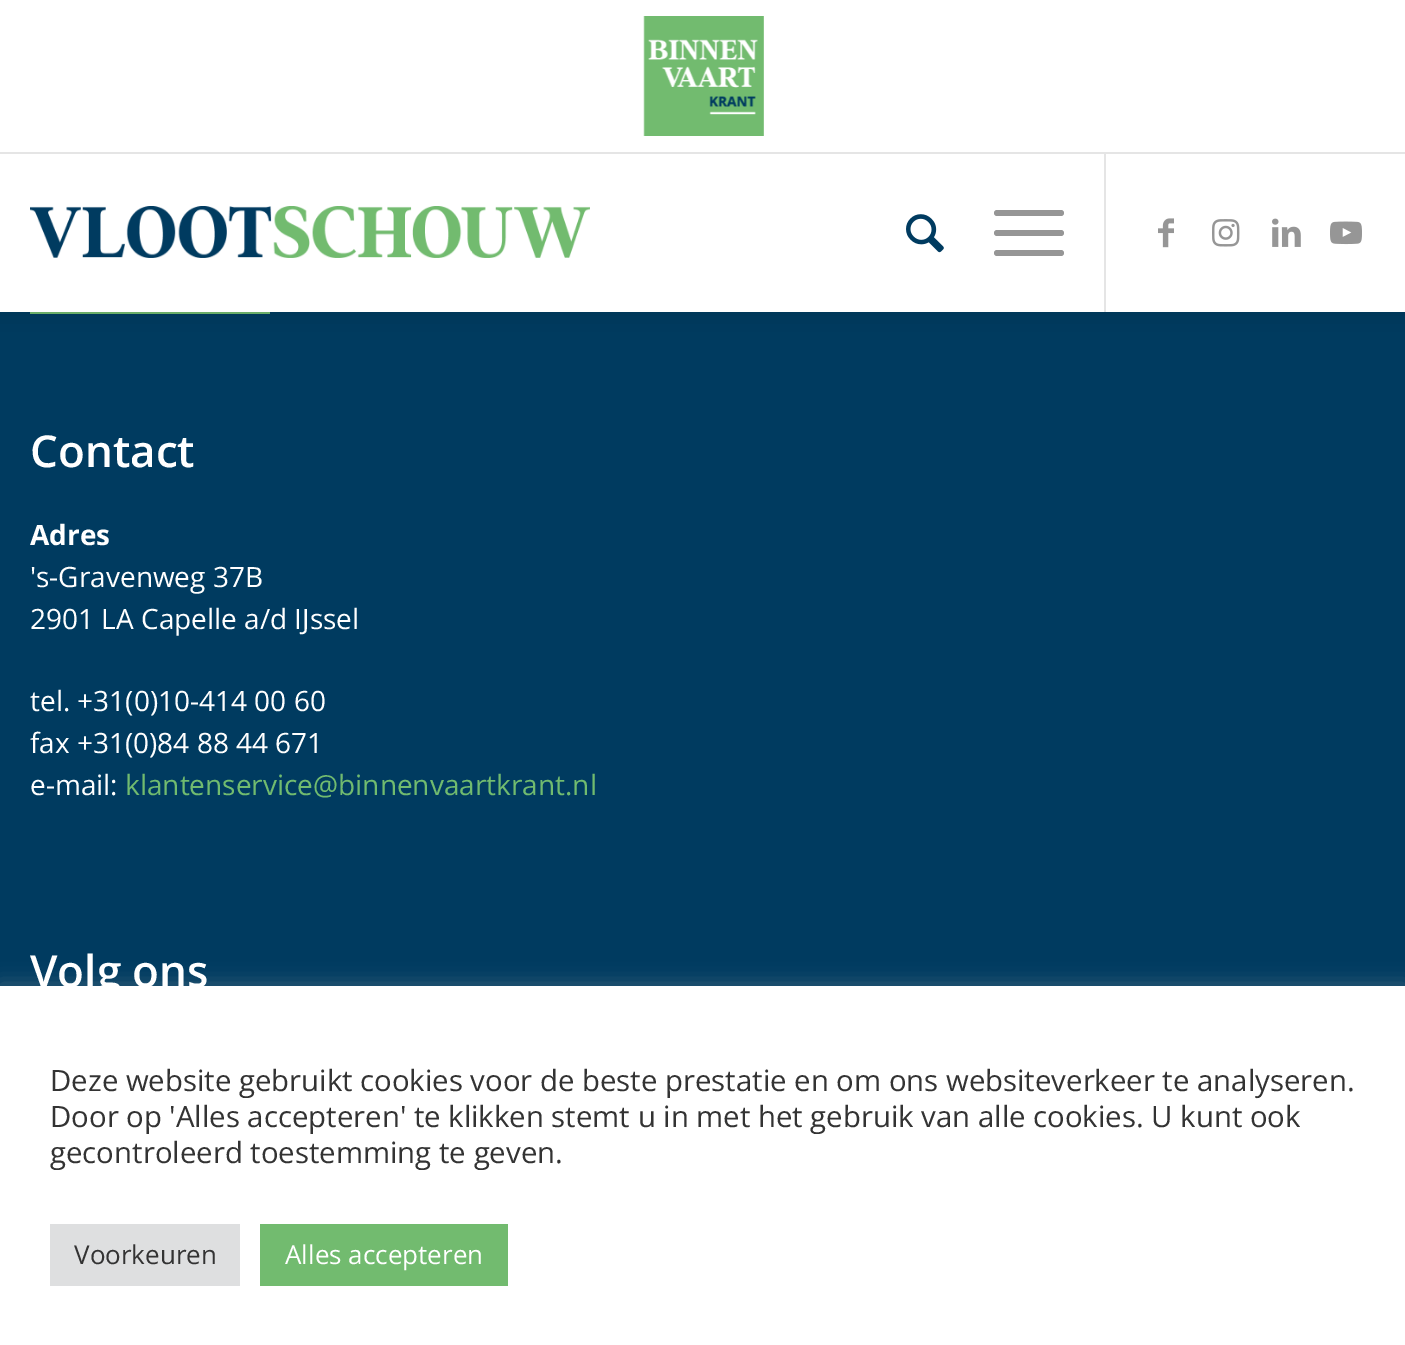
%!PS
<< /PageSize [1405 1345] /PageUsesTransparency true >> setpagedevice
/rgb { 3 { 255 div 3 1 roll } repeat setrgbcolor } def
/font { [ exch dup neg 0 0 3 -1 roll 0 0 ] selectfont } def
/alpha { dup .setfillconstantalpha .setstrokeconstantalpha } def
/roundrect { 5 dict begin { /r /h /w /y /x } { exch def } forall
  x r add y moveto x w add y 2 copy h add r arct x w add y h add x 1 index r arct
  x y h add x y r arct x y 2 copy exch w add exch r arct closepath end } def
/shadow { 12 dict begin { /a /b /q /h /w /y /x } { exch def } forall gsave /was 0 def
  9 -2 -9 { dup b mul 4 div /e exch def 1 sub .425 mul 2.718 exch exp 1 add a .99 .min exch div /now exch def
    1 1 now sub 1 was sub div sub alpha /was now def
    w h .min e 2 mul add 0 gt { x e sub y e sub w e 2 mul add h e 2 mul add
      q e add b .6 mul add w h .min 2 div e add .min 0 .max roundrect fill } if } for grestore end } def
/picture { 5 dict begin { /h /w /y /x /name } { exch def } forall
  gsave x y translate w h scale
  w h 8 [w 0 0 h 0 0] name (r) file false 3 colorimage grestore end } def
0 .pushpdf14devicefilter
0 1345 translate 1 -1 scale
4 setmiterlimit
0 59 96 rgb
0 0 1405 1345 rectfill
(img/8.rgb) 30 312 240 2 picture
0 0 0 rgb
-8 -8 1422 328 0 16 0.1 shadow
[
  [0 0 1405 312 255 255 255]
  [1104 152 2 160 229 229 229]
  [0 152 1405 2 229 229 229]
] { aload pop rgb rectfill } forall
(img/1.rgb) 643 16 121 120 picture
(img/2.rgb) 30 206 560 52 picture
(img/3.rgb) 906 214 38 39 picture
150 150 150 rgb
994 230 70 6 3 roundrect fill
994 210 70 6 3 roundrect fill
994 250 70 6 3 roundrect fill
(img/4.rgb) 1158 218 16 30 picture
(img/5.rgb) 1212 219 28 28 picture
(img/6.rgb) 1272 218 29 29 picture
(img/7.rgb) 1330 221 32 24 picture
172 171 171 rgb
0 984 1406 360 0 10 0.3 shadow
[
  [0 986 1405 359 255 255 255]
  [50 1224 190 62 222 223 224]
  [260 1224 248 62 114 187 111]
] { aload pop rgb rectfill } forall
/OpenSans-SemiBold 44 font
255 255 255 rgb
30 467 moveto (Contact) show
/OpenSans-Bold 28 font
30 545 moveto (Adres) show
/OpenSans-Regular 28 font
[
  [('s-Gravenweg 37B) 30 587]
  [(2901 LA Capelle a/d IJssel) 30 629]
  [(tel. +31\(0\)10-414 00 60) 30 711]
  [(fax +31\(0\)84 88 44 671) 30 753]
  [(e-mail:) 30 795]
] { aload pop moveto show } forall
113 187 111 rgb
125 795 moveto (klantenservice@binnenvaartkrant.nl) show
/OpenSans-SemiBold 44 font
255 255 255 rgb
30 987 moveto (Volg ons) show
/OpenSans-Regular 29.35 font
51 51 51 rgb
[
  [(Deze website gebruikt cookies voor de beste prestatie en om ons websiteverkeer te analyseren.) 50 1091]
  [(Door op 'Alles accepteren' te klikken stemt u in met het gebruik van alle cookies. U kunt ook) 50 1127]
  [(gecontroleerd toestemming te geven.) 50 1163]
] { aload pop moveto show } forall
/OpenSans-Regular 26 font
74 1264 moveto (Voorkeuren) show
255 255 255 rgb
285 1264 moveto (Alles accepteren) show
.poppdf14devicefilter showpage
